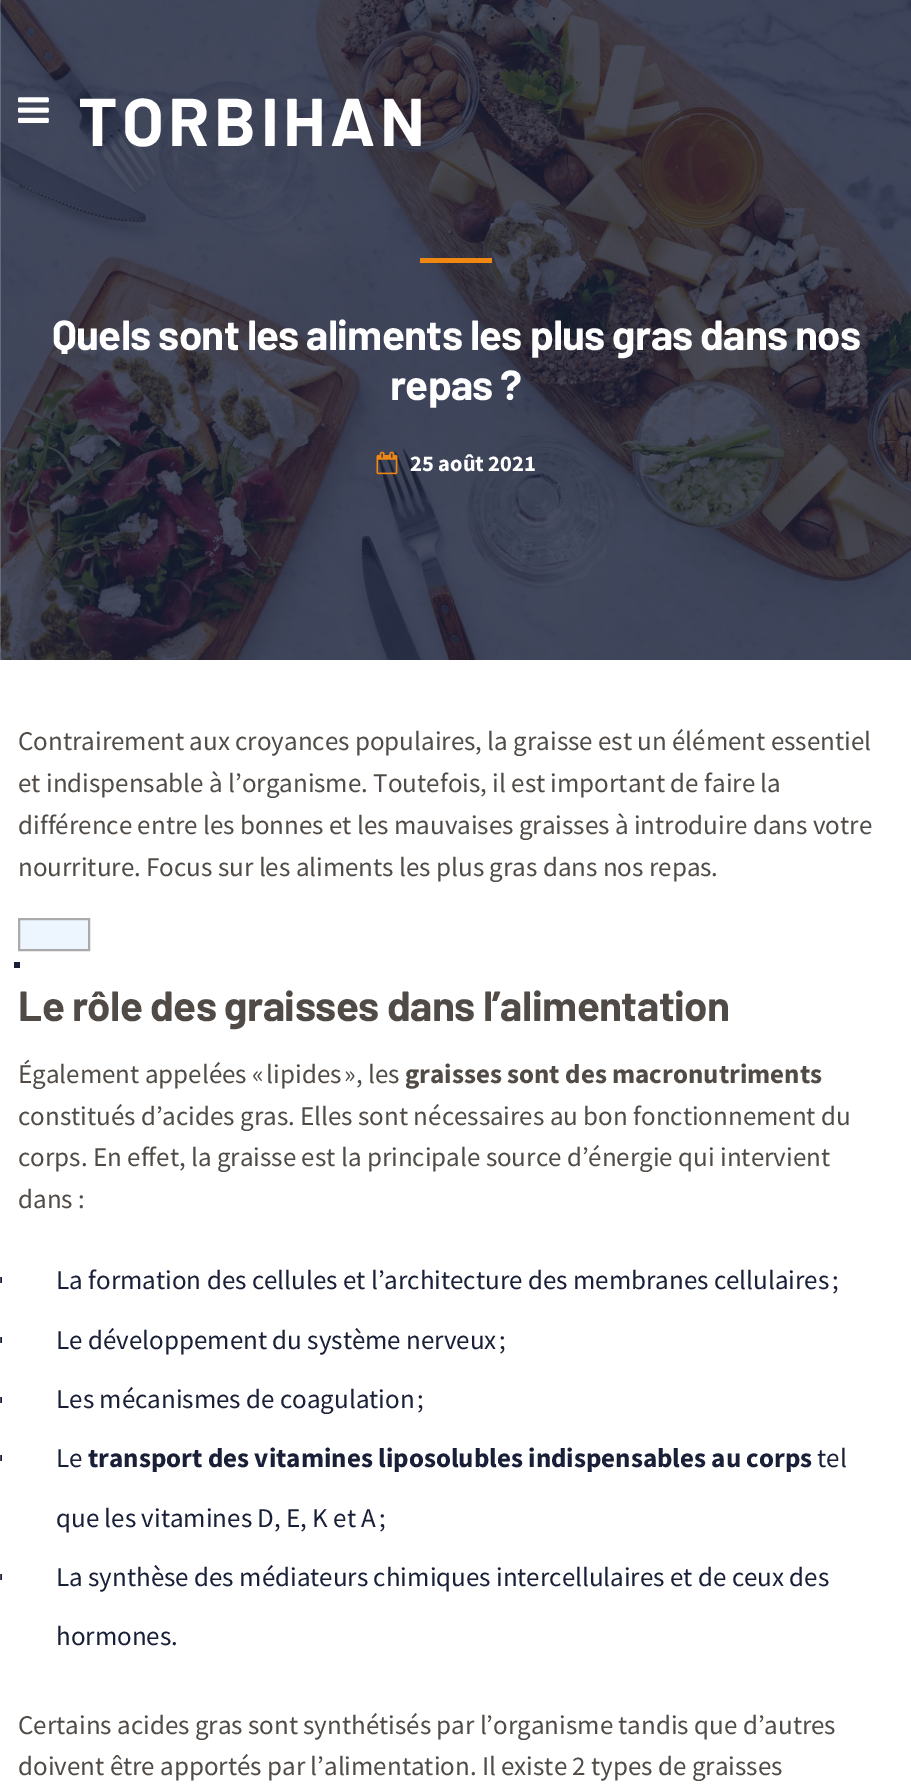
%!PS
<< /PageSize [911 1784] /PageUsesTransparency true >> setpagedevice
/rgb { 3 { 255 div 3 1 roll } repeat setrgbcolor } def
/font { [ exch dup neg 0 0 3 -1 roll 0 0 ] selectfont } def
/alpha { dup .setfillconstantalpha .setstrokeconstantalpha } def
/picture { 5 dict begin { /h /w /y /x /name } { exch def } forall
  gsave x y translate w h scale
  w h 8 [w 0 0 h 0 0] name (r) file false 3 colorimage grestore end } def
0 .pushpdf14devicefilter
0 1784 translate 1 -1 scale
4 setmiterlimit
255 255 255 rgb
0 0 911 1784 rectfill
(img/2.rgb) 0 0 911 660 picture
[
  [0 1277 2 6 25 31 55]
  [0 1337 2 6 25 31 55]
  [0 1397 2 6 25 31 55]
  [0 1455 2 6 25 31 55]
  [0 1574 2 6 25 31 55]
] { aload pop rgb rectfill } forall
0.2 alpha
[
  [0 0 1 1580 255 255 255]
] { aload pop rgb rectfill } forall
1 alpha
(img/1.rgb) 18 97 31 26 picture
239 135 16 rgb
420 258 72 5 rectfill
(img/3.rgb) 376 451 22 24 picture
237 246 255 rgb
19 919 moveto 89 919 lineto 89 950 lineto 19 950 lineto closepath gsave fill grestore
170 170 170 rgb
2 setlinewidth
stroke
25 31 55 rgb
14 962 6 6 rectfill
/Barlow-Bold 67.5 font
255 255 255 rgb
78 146 moveto 4.5 0 (TORBIHAN) ashow
/Barlow-Bold 42 font
52 350 moveto -0.7 0 (Quels sont les aliments les plus gras dans nos) ashow
390 400 moveto -0.7 0 (repas ?) ashow
/SourceSansPro-Bold 22.5 font
410 471 moveto (25 août 2021) show
/SourceSansPro-Regular 27 font
80 75 70 rgb
[
  [(Contrairement aux croyances populaires, la graisse est un élément essentiel) 18 750]
  [(et indispensable à l’organisme. Toutefois, il est important de faire la) 18 792]
  [(différence entre les bonnes et les mauvaises graisses à introduire dans votre) 18 834]
  [(nourriture. Focus sur les aliments les plus gras dans nos repas.) 18 876]
] { aload pop moveto show } forall
/Barlow-Bold 42 font
18 1021 moveto -0.5 0 (Le rôle des graisses dans l’alimentation) ashow
/SourceSansPro-Regular 27 font
18 1083 moveto (Également appelées « lipides », les) show
/SourceSansPro-Bold 27 font
405 1083 moveto (graisses sont des macronutriments) show
/SourceSansPro-Regular 27 font
[
  [(constitués d’acides gras. Elles sont nécessaires au bon fonctionnement du) 18 1125]
  [(corps. En effet, la graisse est la principale source d’énergie qui intervient) 18 1166]
  [(dans :) 18 1208]
] { aload pop moveto show } forall
25 31 55 rgb
[
  [(La formation des cellules et l’architecture des membranes cellulaires ;) 56 1289]
  [(Le développement du système nerveux ;) 56 1349]
  [(Les mécanismes de coagulation ;) 56 1408]
  [(Le) 56 1467]
] { aload pop moveto show } forall
/SourceSansPro-Bold 27 font
88 1467 moveto (transport des vitamines liposolubles indispensables au corps) show
/SourceSansPro-Regular 27 font
[
  [(tel) 817 1467]
  [(que les vitamines D, E, K et A ;) 56 1527]
  [(La synthèse des médiateurs chimiques intercellulaires et de ceux des) 56 1586]
  [(hormones.) 56 1645]
] { aload pop moveto show } forall
80 75 70 rgb
18 1734 moveto (Certains acides gras sont synthétisés par l’organisme tandis que d’autres) show
18 1775 moveto (doivent être apportés par l’alimentation. Il existe 2 types de graisses) show
.poppdf14devicefilter showpage
